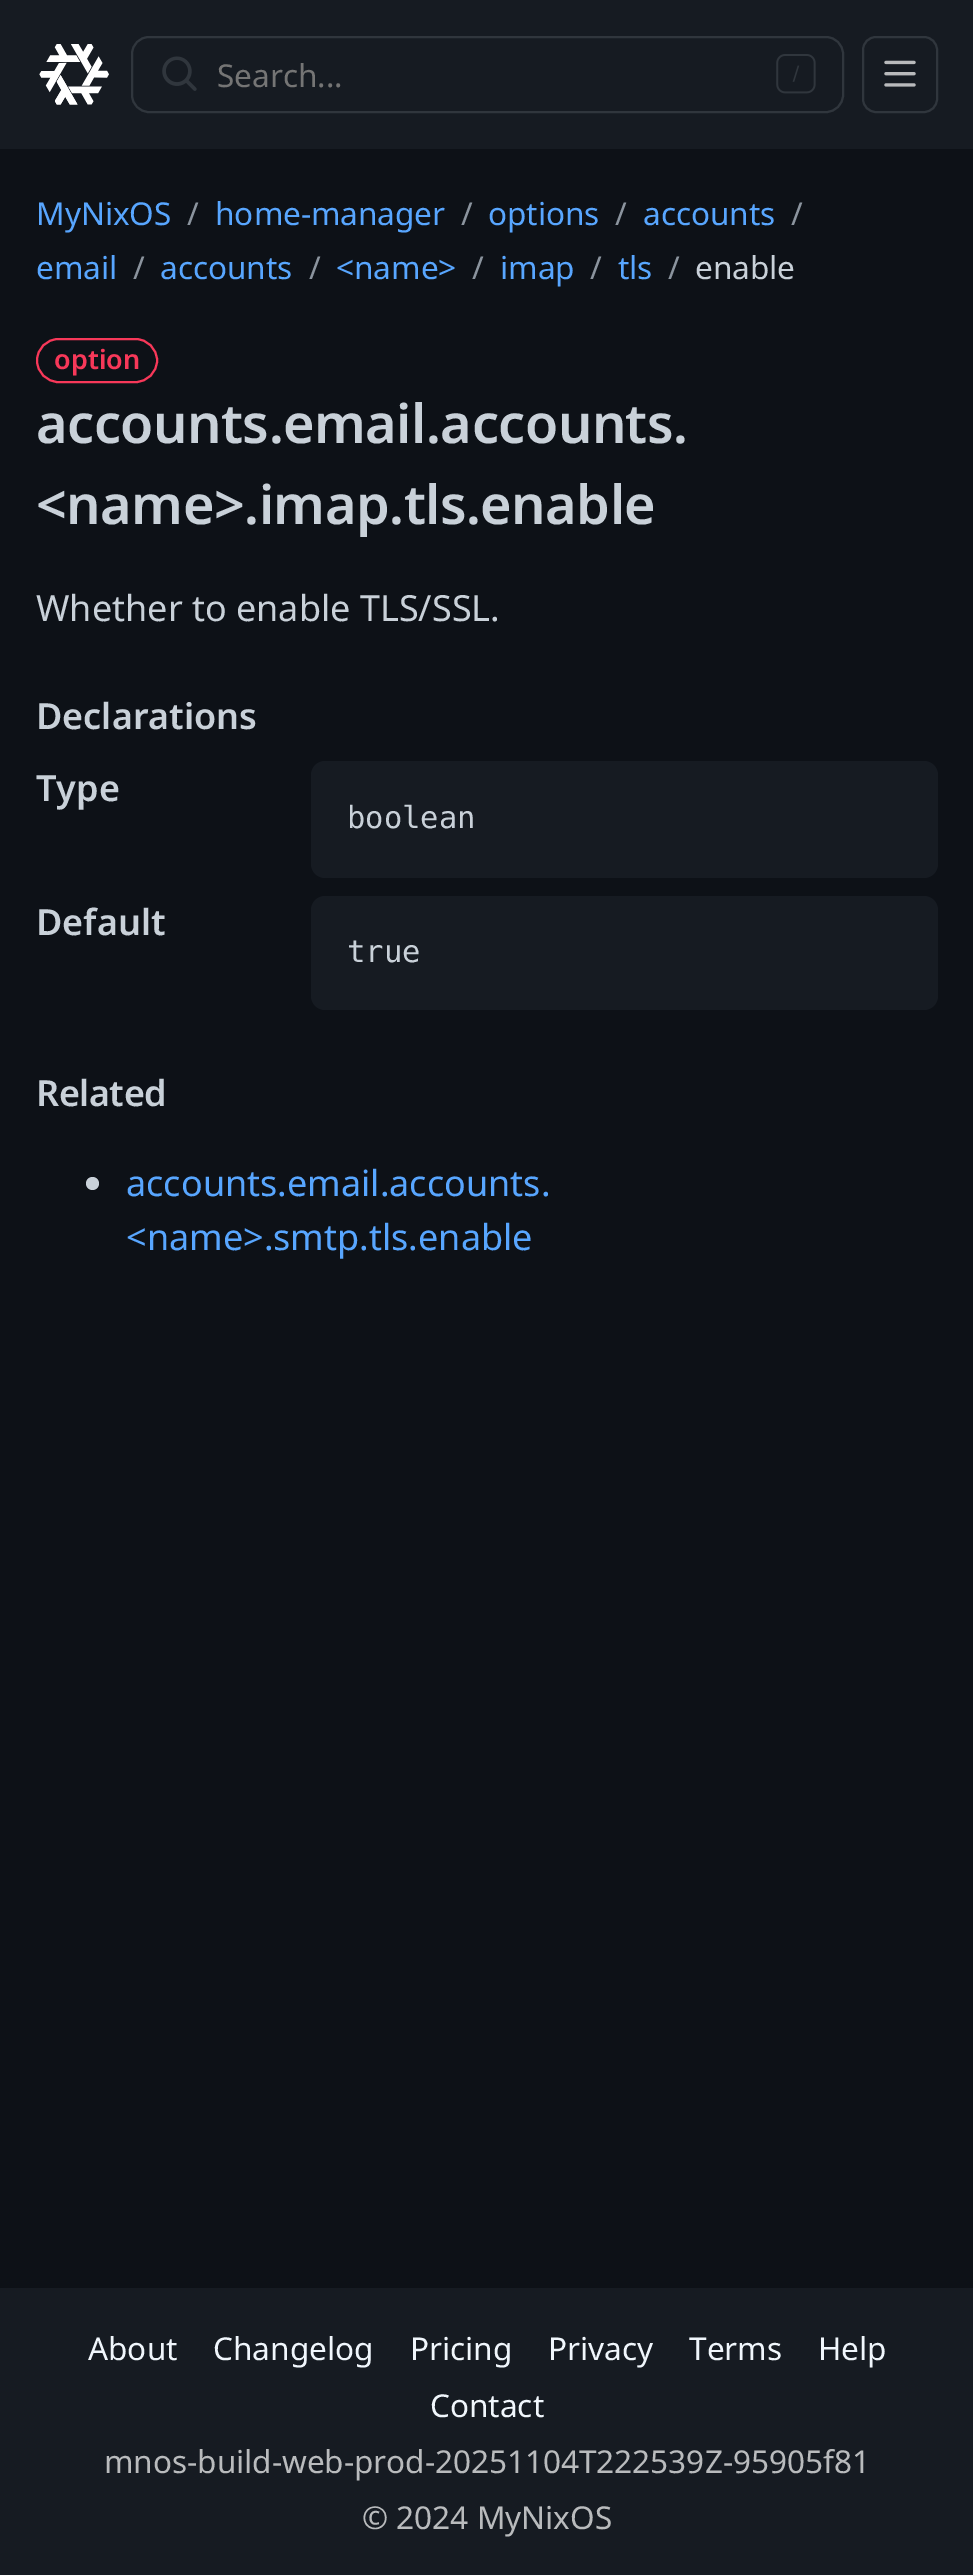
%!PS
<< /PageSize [973 2575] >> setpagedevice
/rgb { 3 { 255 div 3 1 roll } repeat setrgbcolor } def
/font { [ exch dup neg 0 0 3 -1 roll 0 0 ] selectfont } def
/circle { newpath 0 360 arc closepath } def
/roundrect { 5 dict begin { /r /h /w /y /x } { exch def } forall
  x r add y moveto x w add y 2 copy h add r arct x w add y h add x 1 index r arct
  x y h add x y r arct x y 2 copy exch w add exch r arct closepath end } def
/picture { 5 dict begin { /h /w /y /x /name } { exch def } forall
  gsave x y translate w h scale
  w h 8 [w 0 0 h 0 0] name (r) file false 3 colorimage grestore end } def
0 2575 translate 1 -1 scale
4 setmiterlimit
13 17 23 rgb
0 0 973 2575 rectfill
22 27 34 rgb
0 0 973 149 rectfill
(img/1.rgb) 39 44 70 61 picture
48 54 61 rgb
2 setlinewidth
132 37 711 75 17 roundrect stroke
(img/2.rgb) 162 56 35 35 picture
(img/3.rgb) 776 54 40 40 picture
863 37 74 75 13 roundrect stroke
(img/4.rgb) 884 60 32 27 picture
247 56 89 rgb
37 339 120 43 21.5 roundrect stroke
22 27 34 rgb
311 761 627 117 14 roundrect fill
311 896 627 114 14 roundrect fill
201 209 217 rgb
92.5 1183.5 6.5 circle fill
22 27 34 rgb
0 2288 973 287 rectfill
/NotoSans-Regular 31.5 font
117 117 117 rgb
217 87 moveto (Search...) show
88 166 255 rgb
36 225 moveto (MyNixOS) show
139 148 158 rgb
187 225 moveto (/) show
88 166 255 rgb
215 225 moveto (home-manager) show
139 148 158 rgb
461 225 moveto (/) show
88 166 255 rgb
488 225 moveto (options) show
139 148 158 rgb
615 225 moveto (/) show
88 166 255 rgb
643 225 moveto (accounts) show
139 148 158 rgb
791 225 moveto (/) show
88 166 255 rgb
36 279 moveto (email) show
139 148 158 rgb
133 279 moveto (/) show
88 166 255 rgb
160 279 moveto (accounts) show
139 148 158 rgb
309 279 moveto (/) show
88 166 255 rgb
336 279 moveto (<name>) show
139 148 158 rgb
472 279 moveto (/) show
88 166 255 rgb
500 279 moveto (imap) show
139 148 158 rgb
590 279 moveto (/) show
88 166 255 rgb
618 279 moveto (tls) show
139 148 158 rgb
668 279 moveto (/) show
201 209 217 rgb
695 279 moveto (enable) show
/NotoSans-SemiBold 27 font
247 56 89 rgb
54 369 moveto (option) show
/NotoSans-SemiBold 54 font
201 209 217 rgb
36 443 moveto -0.5 0 (accounts.email.accounts.) ashow
36 524 moveto -0.5 0 (<name>.imap.tls.enable) ashow
/NotoSans-Regular 36 font
36 621 moveto (Whether to enable TLS/SSL.) show
/NotoSans-SemiBold 36 font
36 729 moveto (Declarations) show
36 801 moveto (Type) show
/DejaVuSansMono-Regular 30.5 font
347 828 moveto (boolean) show
/NotoSans-SemiBold 36 font
36 935 moveto (Default) show
/DejaVuSansMono-Regular 30.5 font
347 962 moveto (true) show
/NotoSans-SemiBold 36 font
36 1106 moveto -0.5 0 (Related) ashow
/NotoSans-Regular 36 font
88 166 255 rgb
126 1196 moveto (accounts.email.accounts.) show
126 1250 moveto (<name>.smtp.tls.enable) show
/NotoSans-Regular 31.5 font
240 246 252 rgb
[
  [(About) 88 2360]
  [(Changelog) 213 2360]
  [(Pricing) 410 2360]
  [(Privacy) 548 2360]
  [(Terms) 689 2360]
  [(Help) 818 2360]
  [(Contact) 430 2417]
] { aload pop moveto show } forall
185 187 189 rgb
104 2473 moveto (mnos-build-web-prod-20251104T222539Z-95905f81) show
362 2529 moveto (© 2024 MyNixOS) show
showpage
